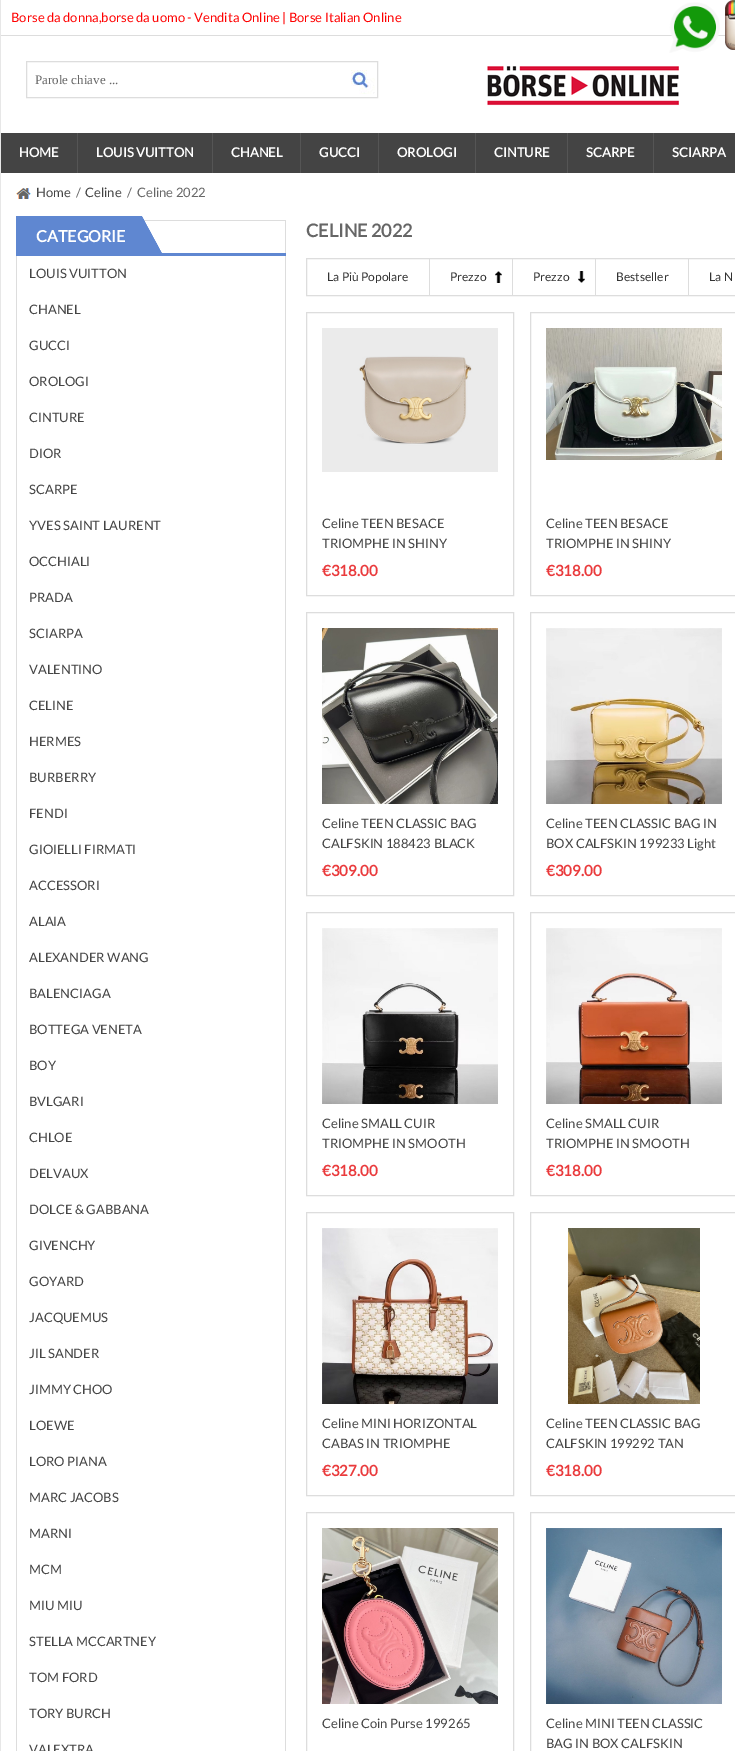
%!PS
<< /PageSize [735 1751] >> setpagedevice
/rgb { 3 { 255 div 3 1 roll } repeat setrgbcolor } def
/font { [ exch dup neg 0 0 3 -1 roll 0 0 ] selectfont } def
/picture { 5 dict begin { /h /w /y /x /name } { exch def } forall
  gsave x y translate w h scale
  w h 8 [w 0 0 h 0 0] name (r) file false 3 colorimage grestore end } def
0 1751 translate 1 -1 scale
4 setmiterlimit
255 255 255 rgb
0 0 735 1751 rectfill
231 231 231 rgb
0 0 1 1751 rectfill
221 221 221 rgb
1 35 725 1 rectfill
(img/1.rgb) 669 2 51 51 picture
(img/2.rgb) 725 0 10 50 picture
26.5 61.5 351 36 rectstroke
(img/3.rgb) 351 70 24 24 picture
(img/4.rgb) 487 66 192 40 picture
[
  [1 133 734 40 68 68 68]
  [77 133 1 40 85 85 85]
  [212 133 1 40 85 85 85]
  [300 133 1 40 85 85 85]
  [378 133 1 40 85 85 85]
  [475 133 1 40 85 85 85]
  [567 133 1 40 85 85 85]
  [653 133 1 40 85 85 85]
] { aload pop rgb rectfill } forall
(img/5.rgb) 16 188 15 11 picture
(img/6.rgb) 126 220 160 36 picture
95 135 209 rgb
16 216 110 40 rectfill
(img/7.rgb) 126 216 36 37 picture
221 221 221 rgb
285 256 1 1495 rectfill
16 256 1 1495 rectfill
306.5 258.5 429 37 rectstroke
429 259 1 36 rectfill
(img/8.rgb) 495 271 7 12 picture
512 259 1 36 rectfill
(img/9.rgb) 578 271 7 12 picture
595 259 1 36 rectfill
688 259 1 36 rectfill
306.5 312.5 207 283 rectstroke
(img/10.rgb) 322 328 176 144 picture
530.5 312.5 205 283 rectstroke
(img/11.rgb) 546 328 176 132 picture
306.5 612.5 207 283 rectstroke
(img/12.rgb) 322 628 176 176 picture
530.5 612.5 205 283 rectstroke
(img/13.rgb) 546 628 176 176 picture
306.5 912.5 207 283 rectstroke
(img/14.rgb) 322 928 176 176 picture
530.5 912.5 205 283 rectstroke
(img/15.rgb) 546 928 176 176 picture
306.5 1212.5 207 283 rectstroke
(img/16.rgb) 322 1228 176 176 picture
530.5 1212.5 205 283 rectstroke
(img/17.rgb) 568 1228 132 176 picture
306.5 1512.5 207 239 rectstroke
(img/18.rgb) 322 1528 176 176 picture
530.5 1512.5 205 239 rectstroke
(img/19.rgb) 546 1528 176 176 picture
/Lato-Regular 13 font
255 0 0 rgb
11 22 moveto (Borse da donna,borse da uomo - Vendita Online | Borse Italian Online) show
/LiberationSerif-Regular 13 font
102 102 102 rgb
35 84 moveto (Parole chiave ...) show
/Lato-Bold 13 font
255 255 255 rgb
[
  [(HOME) 19 157]
  [(LOUIS VUITTON) 96 157]
  [(CHANEL) 231 157]
  [(GUCCI) 319 157]
  [(OROLOGI) 397 157]
  [(CINTURE) 494 157]
  [(SCARPE) 586 157]
  [(SCIARPA) 672 157]
] { aload pop moveto show } forall
/Lato-Regular 13 font
68 68 68 rgb
36 197 moveto (Home) show
102 102 102 rgb
76 197 moveto (/) show
68 68 68 rgb
85 197 moveto (Celine) show
102 102 102 rgb
127 197 moveto (/  Celine 2022) show
/Lato-Bold 16 font
255 255 255 rgb
36 242 moveto (CATEGORIE) show
/Lato-Regular 13 font
68 68 68 rgb
[
  [(LOUIS VUITTON) 29 278]
  [(CHANEL) 29 314]
  [(GUCCI) 29 350]
  [(OROLOGI) 29 386]
  [(CINTURE) 29 422]
  [(DIOR) 29 458]
  [(SCARPE) 29 494]
  [(YVES SAINT LAURENT) 29 530]
  [(OCCHIALI) 29 566]
  [(PRADA) 29 602]
  [(SCIARPA) 29 638]
  [(VALENTINO) 29 674]
  [(CELINE) 29 710]
  [(HERMES) 29 746]
  [(BURBERRY) 29 782]
  [(FENDI) 29 818]
  [(GIOIELLI FIRMATI) 29 854]
  [(ACCESSORI) 29 890]
  [(ALAIA) 29 926]
  [(ALEXANDER WANG) 29 962]
  [(BALENCIAGA) 29 998]
  [(BOTTEGA VENETA) 29 1034]
  [(BOY) 29 1070]
  [(BVLGARI) 29 1106]
  [(CHLOE) 29 1142]
  [(DELVAUX) 29 1178]
  [(DOLCE & GABBANA) 29 1214]
  [(GIVENCHY) 29 1250]
  [(GOYARD) 29 1286]
  [(JACQUEMUS) 29 1322]
  [(JIL SANDER) 29 1358]
  [(JIMMY CHOO) 29 1394]
  [(LOEWE) 29 1430]
  [(LORO PIANA) 29 1466]
  [(MARC JACOBS) 29 1502]
  [(MARNI) 29 1538]
  [(MCM) 29 1574]
  [(MIU MIU) 29 1610]
  [(STELLA MCCARTNEY) 29 1646]
  [(TOM FORD) 29 1682]
  [(TORY BURCH) 29 1718]
  [(VALEXTRA) 29 1754]
] { aload pop moveto show } forall
/Lato-Bold 18 font
102 102 102 rgb
306 237 moveto (CELINE 2022) show
/Lato-Regular 12 font
51 51 51 rgb
[
  [(La Più Popolare) 327 281]
  [(Prezzo) 450 281]
  [(Prezzo) 533 281]
  [(Bestseller) 616 281]
  [(La N) 709 281]
] { aload pop moveto show } forall
/Lato-Regular 13 font
68 68 68 rgb
322 528 moveto (Celine TEEN BESACE) show
322 548 moveto (TRIOMPHE IN SHINY) show
/Lato-Bold 15 font
234 58 60 rgb
322 576 moveto (€318.00) show
/Lato-Regular 13 font
68 68 68 rgb
546 528 moveto (Celine TEEN BESACE) show
546 548 moveto (TRIOMPHE IN SHINY) show
/Lato-Bold 15 font
234 58 60 rgb
546 576 moveto (€318.00) show
/Lato-Regular 13 font
68 68 68 rgb
322 828 moveto (Celine TEEN CLASSIC BAG) show
322 848 moveto (CALFSKIN 188423 BLACK) show
/Lato-Bold 15 font
234 58 60 rgb
322 876 moveto (€309.00) show
/Lato-Regular 13 font
68 68 68 rgb
546 828 moveto (Celine TEEN CLASSIC BAG IN) show
546 848 moveto (BOX CALFSKIN 199233 Light) show
/Lato-Bold 15 font
234 58 60 rgb
546 876 moveto (€309.00) show
/Lato-Regular 13 font
68 68 68 rgb
322 1128 moveto (Celine SMALL CUIR) show
322 1148 moveto (TRIOMPHE IN SMOOTH) show
/Lato-Bold 15 font
234 58 60 rgb
322 1176 moveto (€318.00) show
/Lato-Regular 13 font
68 68 68 rgb
546 1128 moveto (Celine SMALL CUIR) show
546 1148 moveto (TRIOMPHE IN SMOOTH) show
/Lato-Bold 15 font
234 58 60 rgb
546 1176 moveto (€318.00) show
/Lato-Regular 13 font
68 68 68 rgb
322 1428 moveto (Celine MINI HORIZONTAL) show
322 1448 moveto (CABAS IN TRIOMPHE) show
/Lato-Bold 15 font
234 58 60 rgb
322 1476 moveto (€327.00) show
/Lato-Regular 13 font
68 68 68 rgb
546 1428 moveto (Celine TEEN CLASSIC BAG) show
546 1448 moveto (CALFSKIN 199292 TAN) show
/Lato-Bold 15 font
234 58 60 rgb
546 1476 moveto (€318.00) show
/Lato-Regular 13 font
68 68 68 rgb
[
  [(Celine Coin Purse 199265) 322 1728]
  [(Celine MINI TEEN CLASSIC) 546 1728]
  [(BAG IN BOX CALFSKIN) 546 1748]
] { aload pop moveto show } forall
showpage
